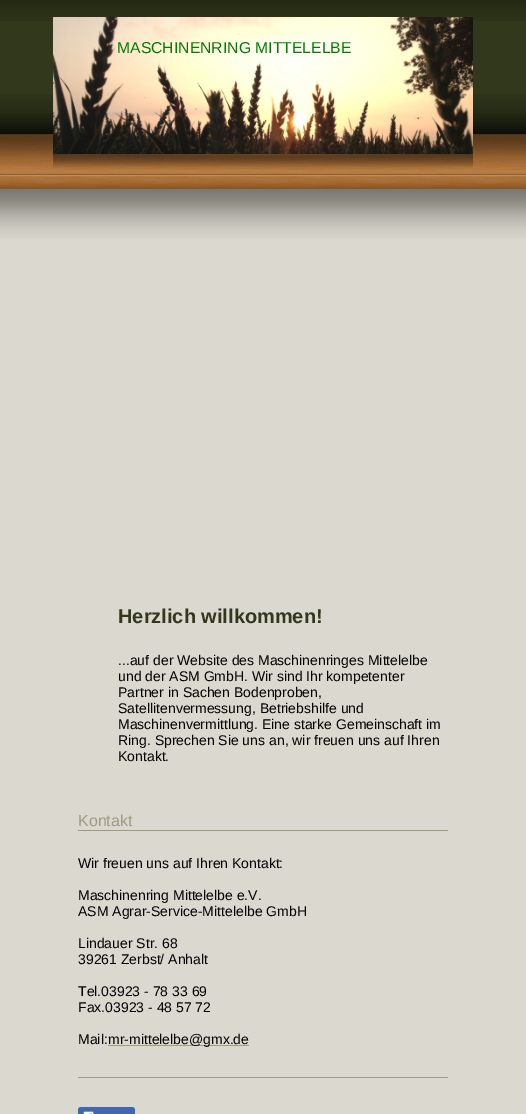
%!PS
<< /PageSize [526 1114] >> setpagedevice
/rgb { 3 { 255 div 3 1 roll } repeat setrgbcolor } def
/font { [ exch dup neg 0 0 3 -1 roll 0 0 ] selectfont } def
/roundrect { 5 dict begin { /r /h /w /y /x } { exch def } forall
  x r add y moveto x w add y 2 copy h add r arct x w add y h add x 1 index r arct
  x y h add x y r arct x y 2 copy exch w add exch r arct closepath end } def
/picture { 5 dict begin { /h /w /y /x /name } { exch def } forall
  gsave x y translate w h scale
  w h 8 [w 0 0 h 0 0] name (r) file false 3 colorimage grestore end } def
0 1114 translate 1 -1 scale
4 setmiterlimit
219 217 207 rgb
0 0 526 1114 rectfill
49 56 28 rgb
0 0 526 174 rectfill
(img/1.rgb) 0 94 526 95 picture
(img/2.rgb) 0 0 526 21 picture
(img/3.rgb) 53 154 420 15 picture
(img/4.rgb) 53 17 420 137 picture
(img/5.rgb) 0 189 526 50 picture
[
  [78 830 370 1 160 155 128]
  [108 1045 141 1 160 155 128]
  [78 1077 370 1 160 155 128]
] { aload pop rgb rectfill } forall
66 103 178 rgb
78 1107 57 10 3 roundrect fill
(img/6.rgb) 83 1111 11 3 picture
/LiberationSans-Regular 15.75 font
3 122 4 rgb
117 53 moveto (MASCHINENRING MITTELELBE) show
/LiberationSans-Bold 20 font
49 56 28 rgb
118 623 moveto (Herzlich willkommen!) show
/LiberationSans-Regular 14 font
0 0 0 rgb
[
  [(...auf der Website des Maschinenringes Mittelelbe) 118 665]
  [(und der ASM GmbH. Wir sind Ihr kompetenter) 118 681]
  [(Partner in Sachen Bodenproben,) 118 697]
  [(Satellitenvermessung, Betriebshilfe und) 118 713]
  [(Maschinenvermittlung. Eine starke Gemeinschaft im) 118 729]
  [(Ring. Sprechen Sie uns an, wir freuen uns auf Ihren) 118 745]
  [(Kontakt.) 118 761]
] { aload pop moveto show } forall
/LiberationSans-Regular 16 font
160 155 128 rgb
78 826 moveto (Kontakt) show
/LiberationSans-Regular 14 font
0 0 0 rgb
[
  [(Wir freuen uns auf Ihren Kontakt:) 78 868]
  [(Maschinenring Mittelelbe e.V.) 78 900]
  [(ASM Agrar-Service-Mittelelbe GmbH) 78 916]
  [(Lindauer Str. 68) 78 948]
  [(39261 Zerbst/ Anhalt) 78 964]
  [(Tel.03923 - 78 33 69) 78 996]
  [(Fax.03923 - 48 57 72) 78 1012]
  [(Mail:) 78 1044]
  [(mr-mittelelbe@gmx.de) 108 1044]
] { aload pop moveto show } forall
showpage
